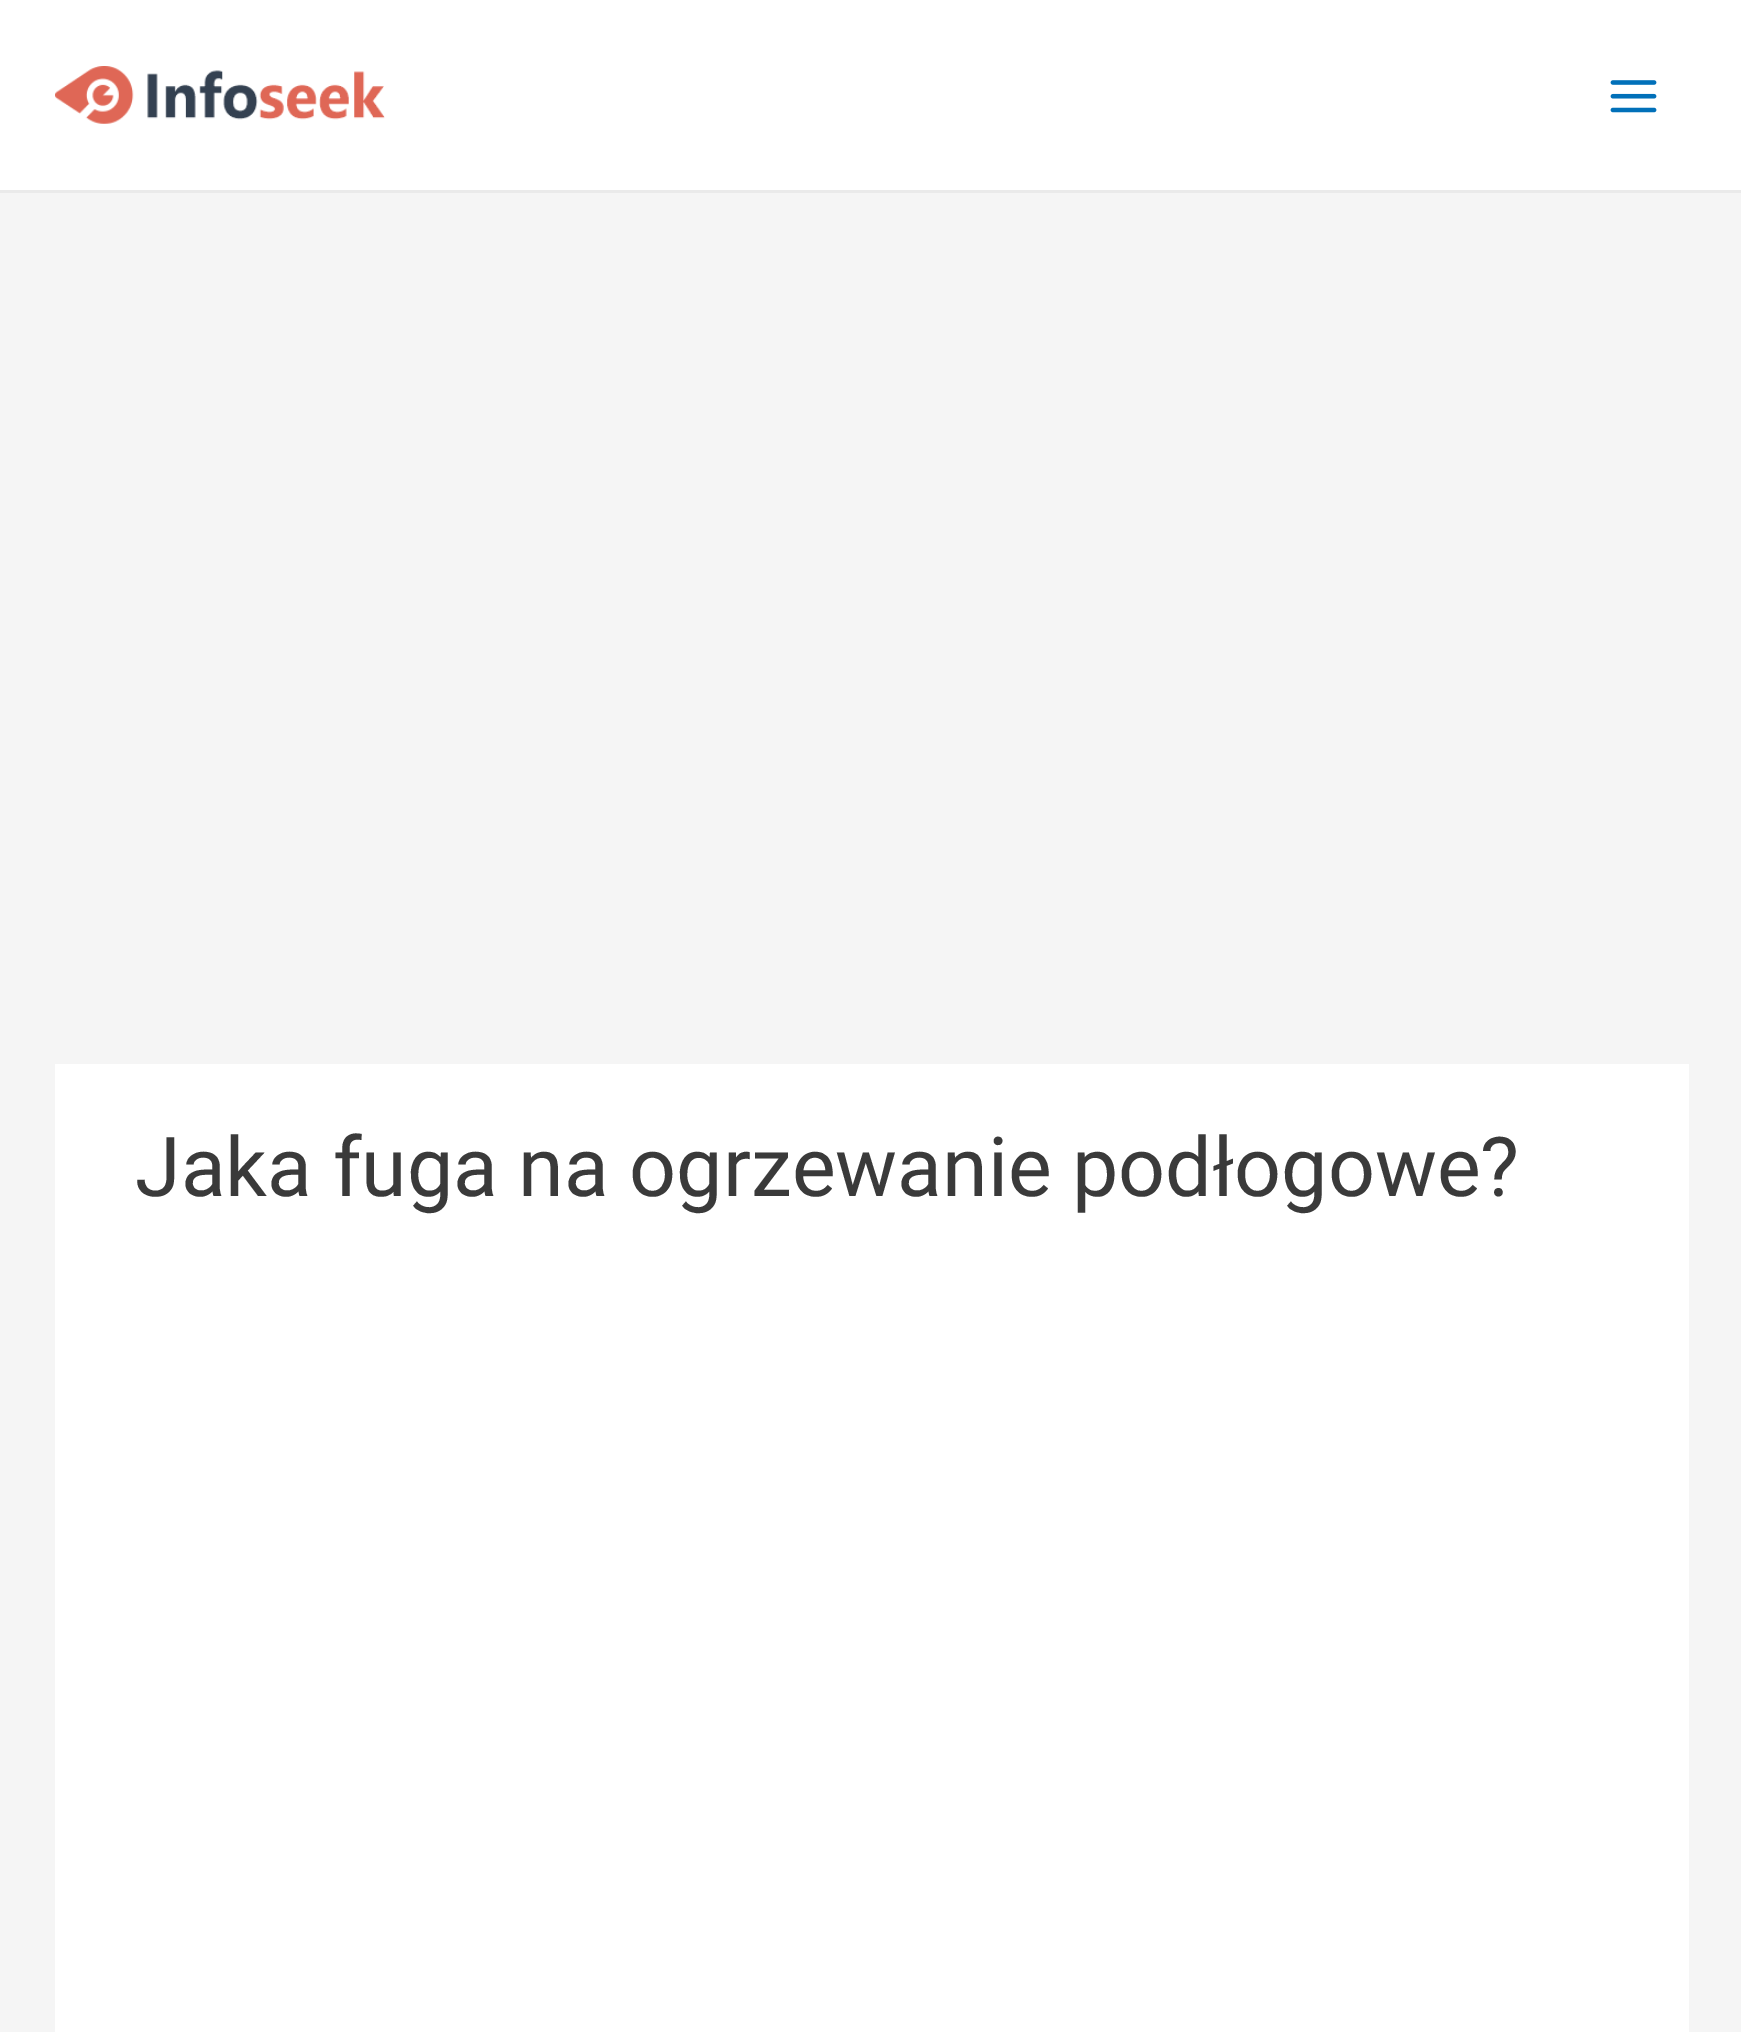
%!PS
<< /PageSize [1741 2032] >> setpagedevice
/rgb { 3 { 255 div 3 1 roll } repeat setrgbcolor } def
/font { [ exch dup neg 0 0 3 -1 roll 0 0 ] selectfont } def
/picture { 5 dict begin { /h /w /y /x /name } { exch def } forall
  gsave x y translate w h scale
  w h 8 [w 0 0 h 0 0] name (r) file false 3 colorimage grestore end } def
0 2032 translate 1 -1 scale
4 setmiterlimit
245 245 245 rgb
0 0 1741 2032 rectfill
255 255 255 rgb
0 0 1741 190 rectfill
234 234 234 rgb
0 190 1741 3 rectfill
(img/1.rgb) 55 66 330 58 picture
(img/2.rgb) 1610 80 47 33 picture
255 255 255 rgb
55 1064 1634 968 rectfill
/Roboto-Regular 82.5 font
58 58 58 rgb
135 1196 moveto (Jaka fuga na ogrzewanie podłogowe?) show
showpage
